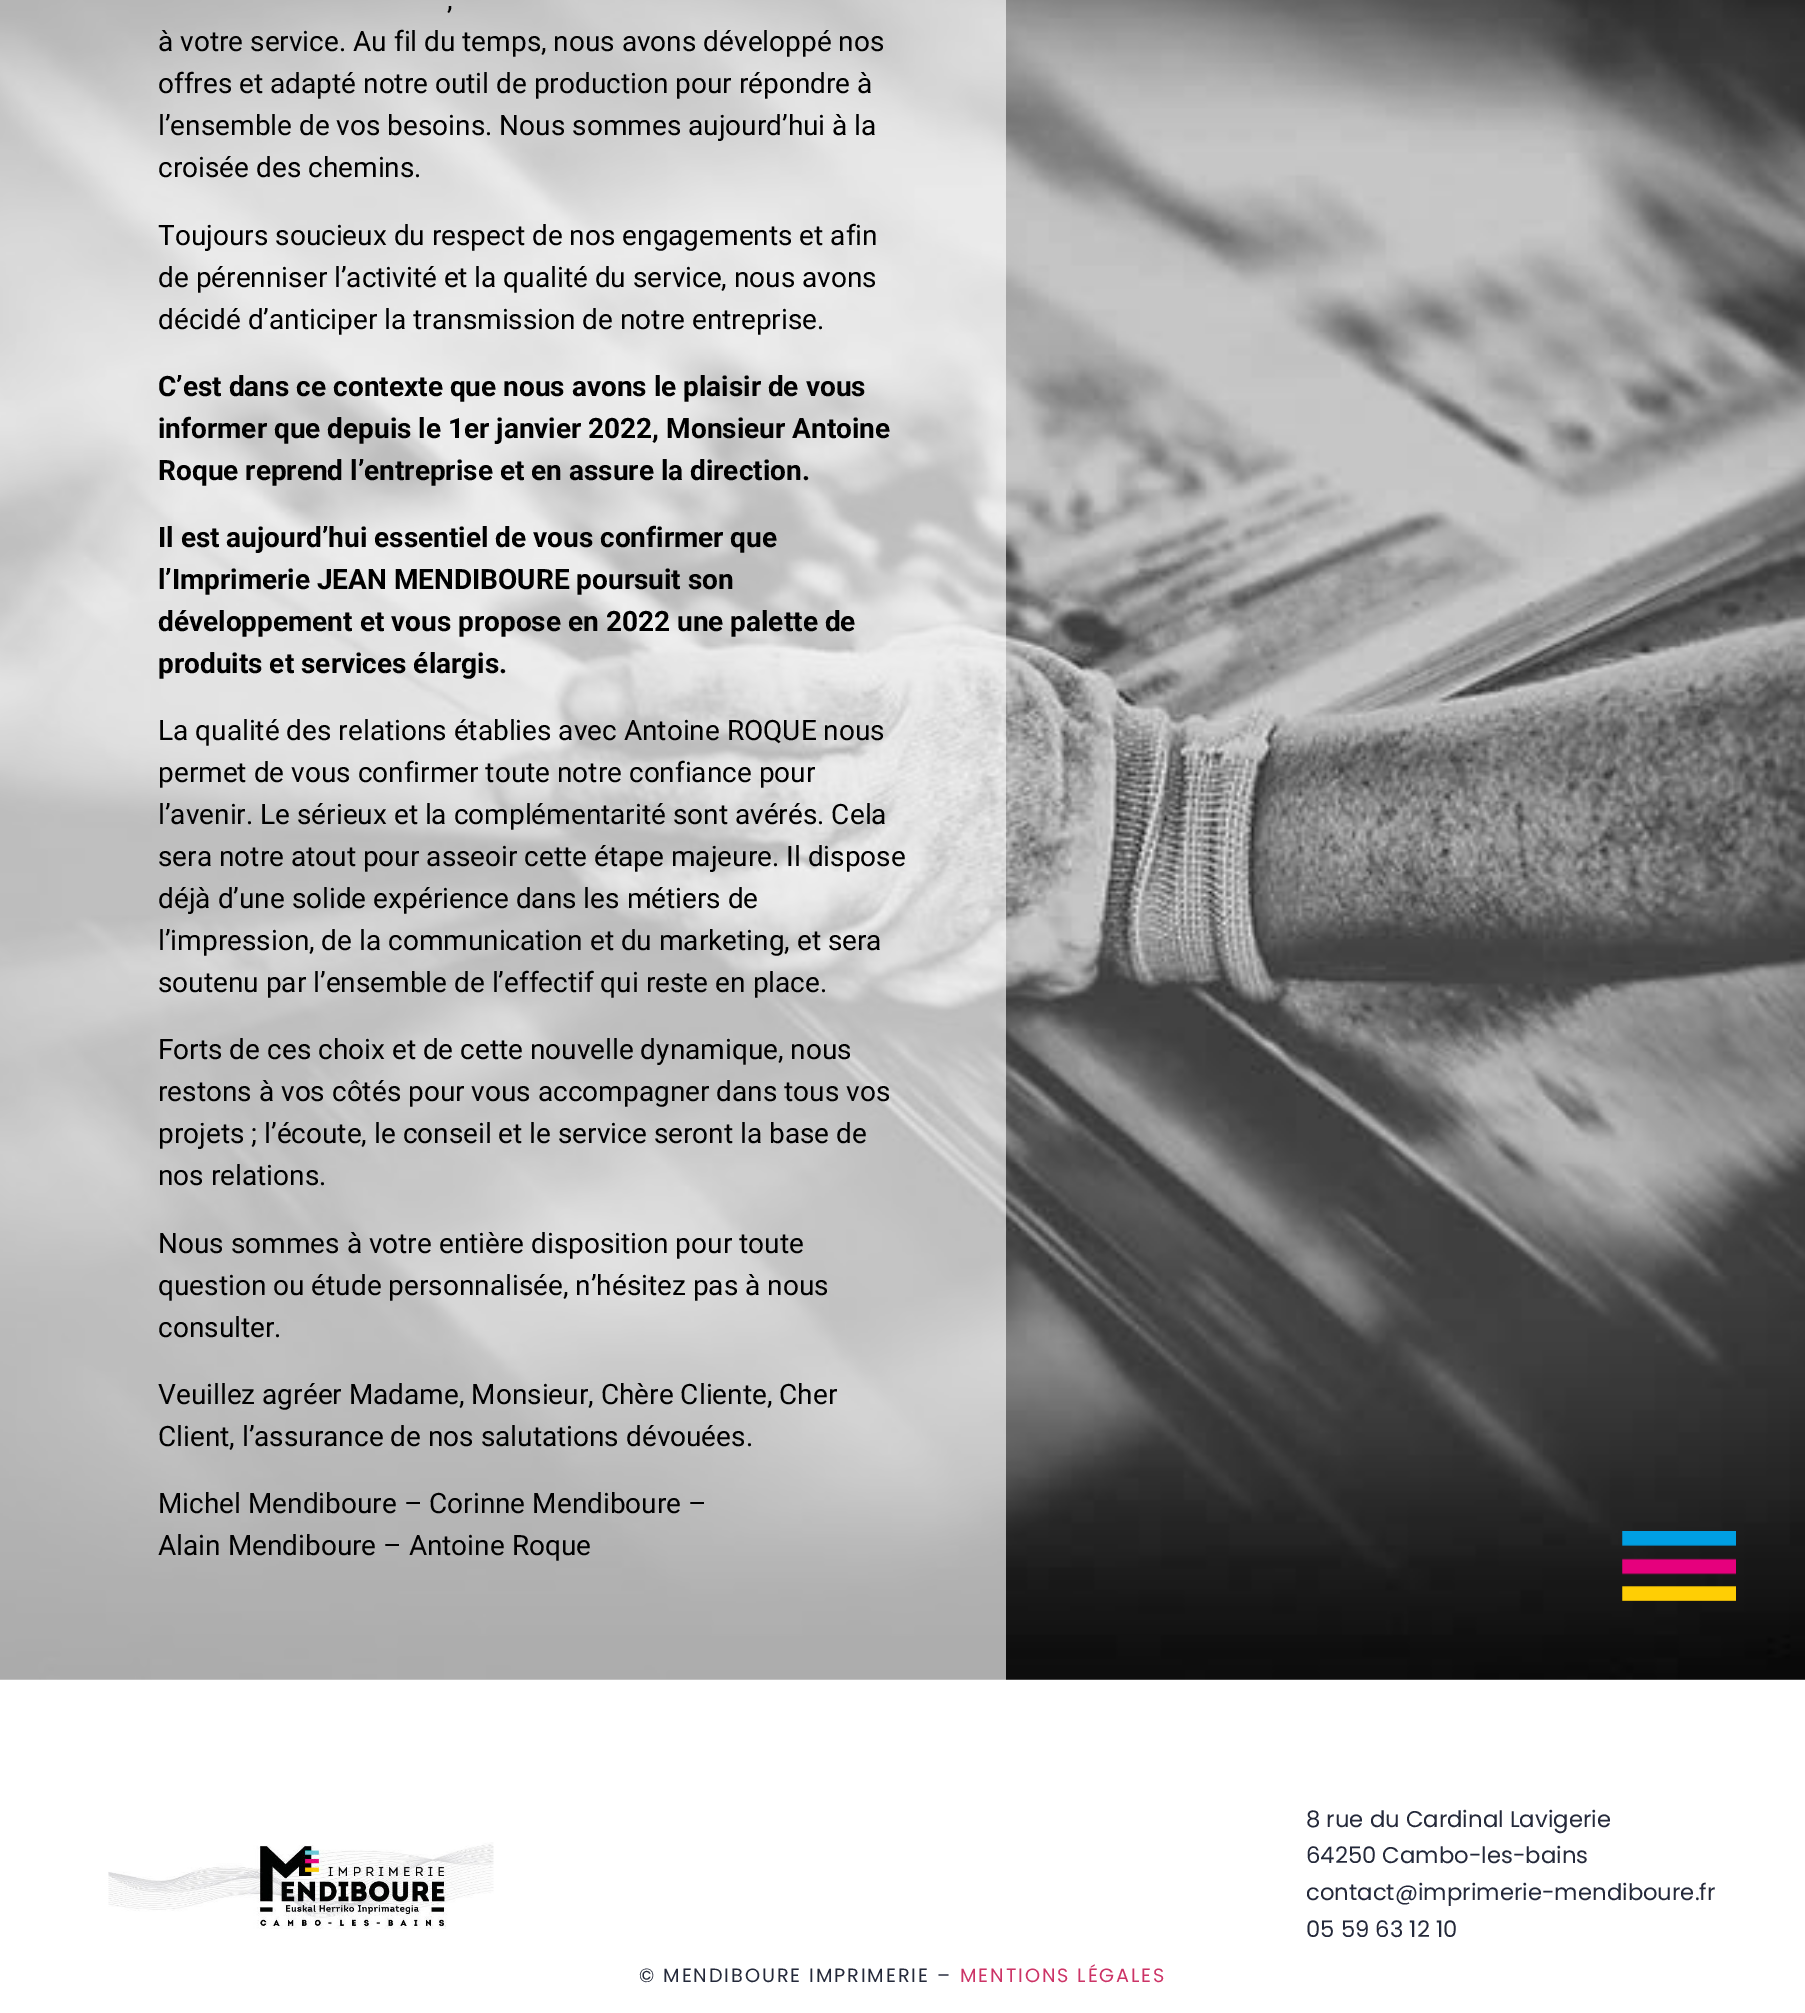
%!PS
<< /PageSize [1805 2013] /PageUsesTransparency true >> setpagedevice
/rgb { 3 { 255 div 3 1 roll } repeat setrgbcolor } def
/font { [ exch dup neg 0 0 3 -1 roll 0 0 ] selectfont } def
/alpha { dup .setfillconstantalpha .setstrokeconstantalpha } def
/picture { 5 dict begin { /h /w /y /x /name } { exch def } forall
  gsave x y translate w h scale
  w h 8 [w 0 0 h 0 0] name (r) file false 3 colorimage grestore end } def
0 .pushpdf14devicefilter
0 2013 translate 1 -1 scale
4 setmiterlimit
255 255 255 rgb
0 0 1805 2013 rectfill
(img/1.rgb) 0 0 1805 1680 picture
0.66 alpha
0 0 1006 1680 rectfill
1 alpha
(img/2.rgb) 1622 1531 114 70 picture
(img/3.rgb) 108 1842 386 87 picture
/Roboto-Regular 28 font
0 0 0 rgb
[
  [(,) 447 9]
  [(à votre service. Au fil du temps, nous avons développé nos) 158 51]
  [(offres et adapté notre outil de production pour répondre à) 158 93]
  [(l’ensemble de vos besoins. Nous sommes aujourd’hui à la) 158 135]
  [(croisée des chemins.) 158 177]
  [(Toujours soucieux du respect de nos engagements et afin) 158 245]
  [(de pérenniser l’activité et la qualité du service, nous avons) 158 287]
  [(décidé d’anticiper la transmission de notre entreprise.) 158 329]
] { aload pop moveto show } forall
/Roboto-Bold 28 font
[
  [(C’est dans ce contexte que nous avons le plaisir de vous) 158 396]
  [(informer que depuis le 1er janvier 2022, Monsieur Antoine) 158 438]
  [(Roque reprend l’entreprise et en assure la direction.) 158 480]
  [(Il est aujourd’hui essentiel de vous confirmer que) 158 547]
  [(l’Imprimerie JEAN MENDIBOURE poursuit son) 158 589]
  [(développement et vous propose en 2022 une palette de) 158 631]
  [(produits et services élargis.) 158 673]
] { aload pop moveto show } forall
/Roboto-Regular 28 font
[
  [(La qualité des relations établies avec Antoine ROQUE nous) 158 740]
  [(permet de vous confirmer toute notre confiance pour) 158 782]
  [(l’avenir. Le sérieux et la complémentarité sont avérés. Cela) 158 824]
  [(sera notre atout pour asseoir cette étape majeure. Il dispose) 158 866]
  [(déjà d’une solide expérience dans les métiers de) 158 908]
  [(l’impression, de la communication et du marketing, et sera) 158 950]
  [(soutenu par l’ensemble de l’effectif qui reste en place.) 158 992]
  [(Forts de ces choix et de cette nouvelle dynamique, nous) 158 1059]
  [(restons à vos côtés pour vous accompagner dans tous vos) 158 1101]
  [(projets ; l’écoute, le conseil et le service seront la base de) 158 1143]
  [(nos relations.) 158 1185]
  [(Nous sommes à votre entière disposition pour toute) 158 1253]
  [(question ou étude personnalisée, n’hésitez pas à nous) 158 1295]
  [(consulter.) 158 1337]
  [(Veuillez agréer Madame, Monsieur, Chère Cliente, Cher) 158 1404]
  [(Client, l’assurance de nos salutations dévouées.) 158 1446]
  [(Michel Mendiboure – Corinne Mendiboure –) 158 1513]
  [(Alain Mendiboure – Antoine Roque) 158 1555]
] { aload pop moveto show } forall
/Poppins-Regular 22.75 font
36 41 58 rgb
[
  [(8 rue du Cardinal Lavigerie) 1306 1827]
  [(64250 Cambo-les-bains) 1306 1863]
  [(contact@imprimerie-mendiboure.fr) 1306 1900]
  [(05 59 63 12 10) 1306 1937]
] { aload pop moveto show } forall
/Poppins-Regular 19.25 font
639 1982 moveto 1.9 0 (© MENDIBOURE IMPRIMERIE –) ashow
204 51 102 rgb
960 1982 moveto 1.9 0 (MENTIONS LÉGALES) ashow
.poppdf14devicefilter showpage
